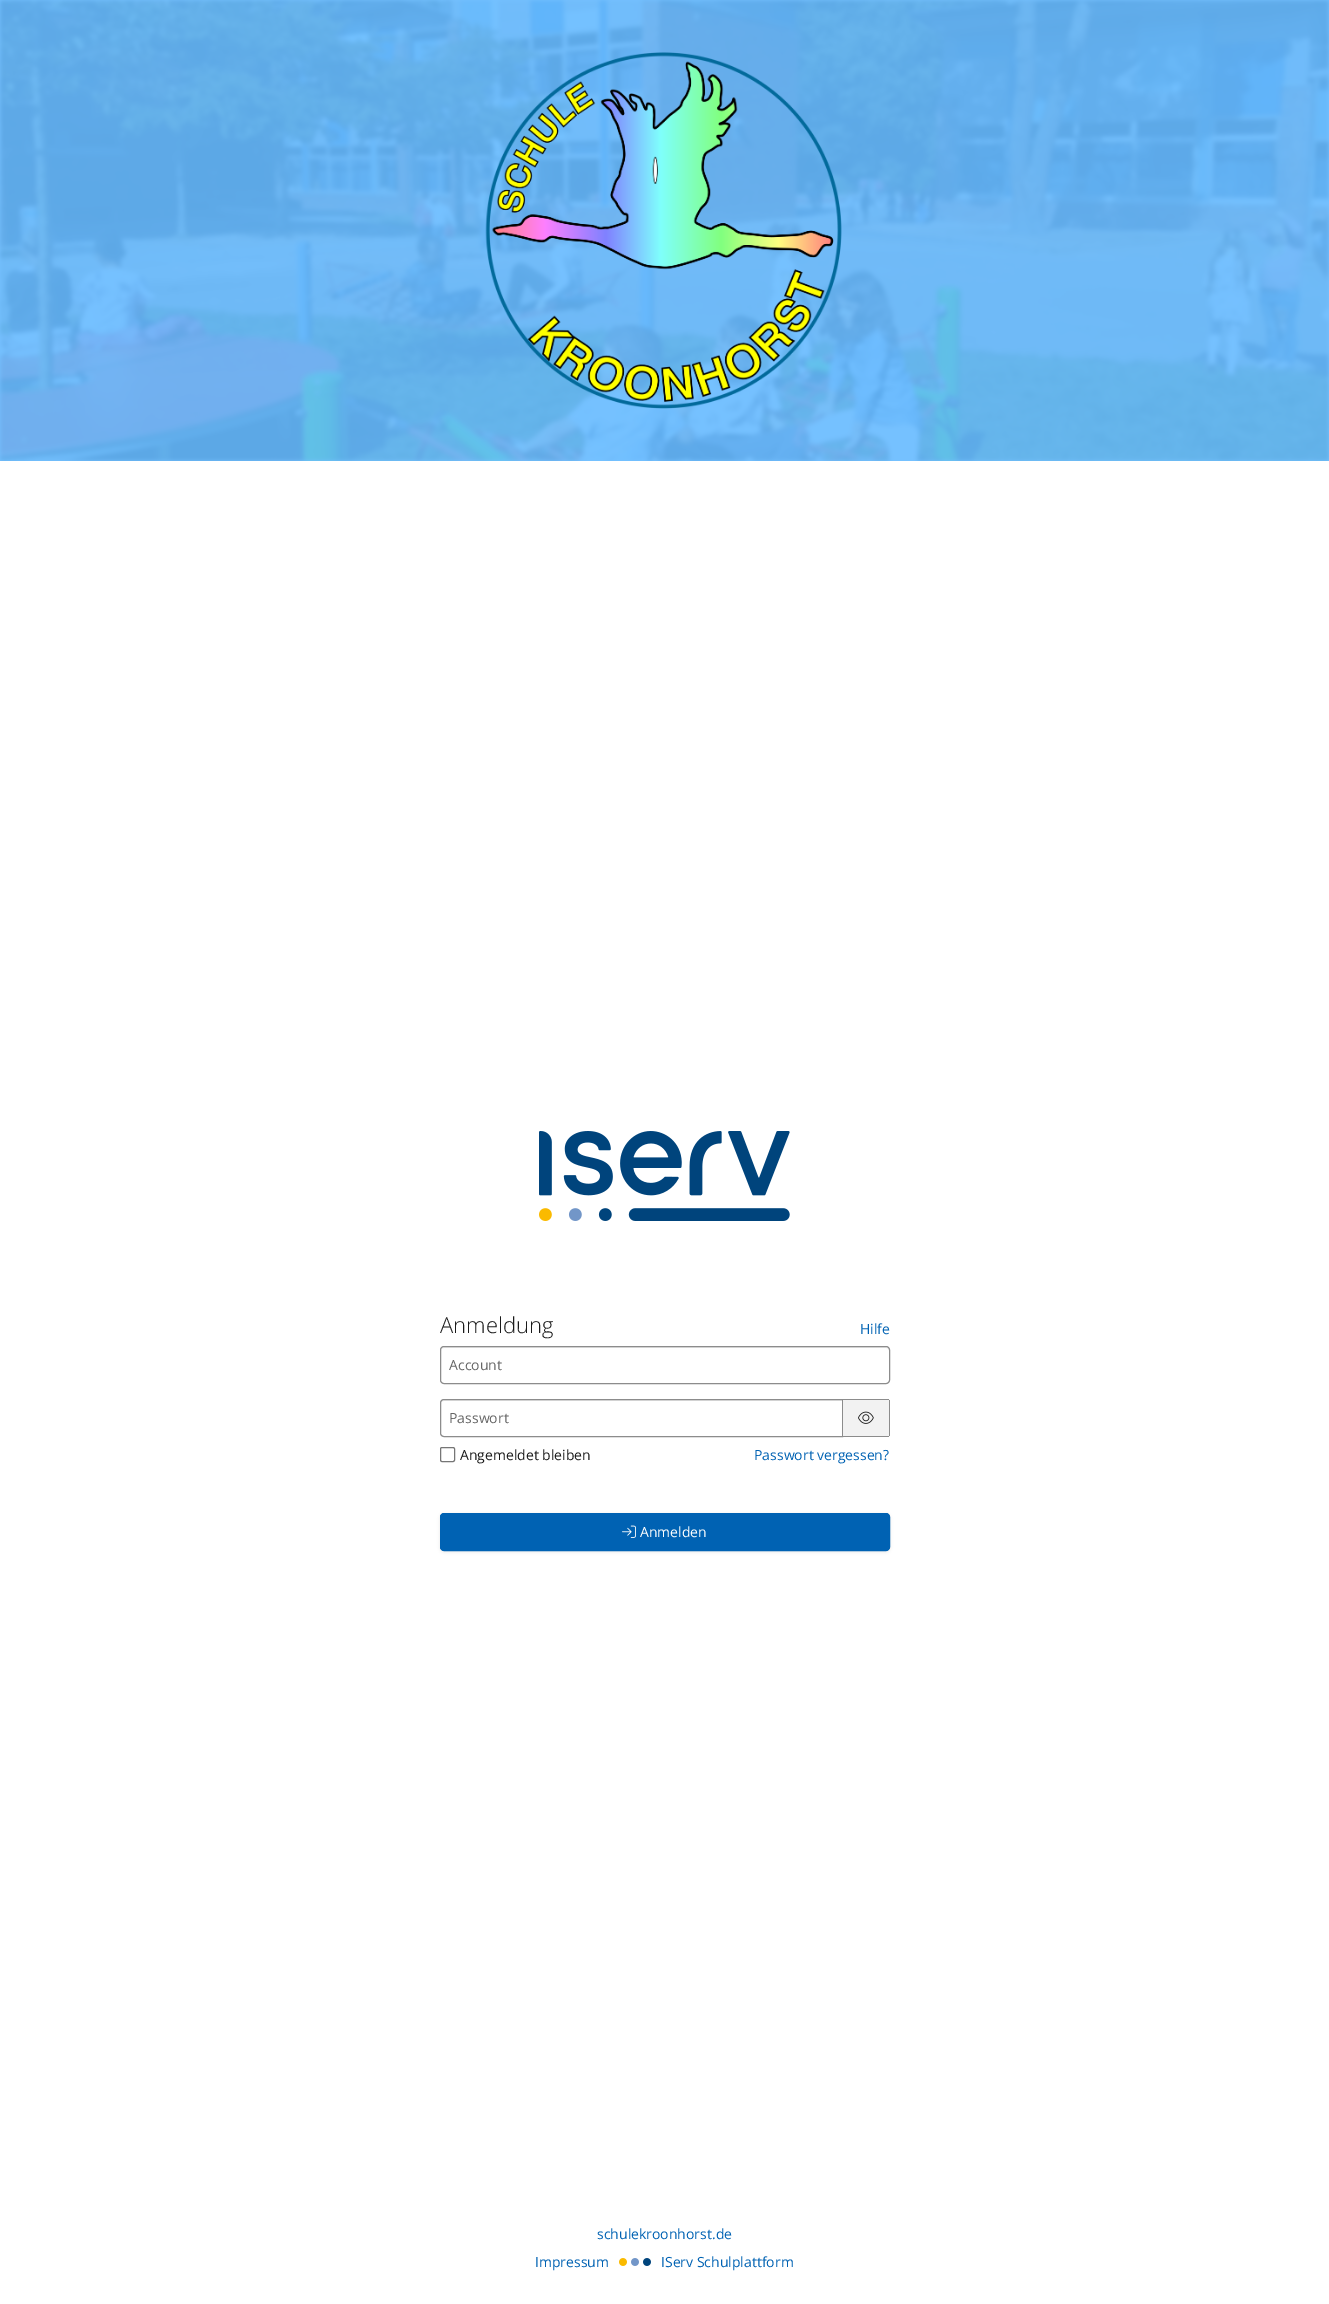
%!PS
<< /PageSize [1329 2304] /PageUsesTransparency true >> setpagedevice
/rgb { 3 { 255 div 3 1 roll } repeat setrgbcolor } def
/font { [ exch dup neg 0 0 3 -1 roll 0 0 ] selectfont } def
/alpha { dup .setfillconstantalpha .setstrokeconstantalpha } def
/roundrect { 5 dict begin { /r /h /w /y /x } { exch def } forall
  x r add y moveto x w add y 2 copy h add r arct x w add y h add x 1 index r arct
  x y h add x y r arct x y 2 copy exch w add exch r arct closepath end } def
/shadow { 12 dict begin { /a /b /q /h /w /y /x } { exch def } forall gsave /was 0 def
  9 -2 -9 { dup b mul 4 div /e exch def 1 sub .425 mul 2.718 exch exp 1 add a .99 .min exch div /now exch def
    1 1 now sub 1 was sub div sub alpha /was now def
    w h .min e 2 mul add 0 gt { x e sub y e sub w e 2 mul add h e 2 mul add
      q e add b .6 mul add w h .min 2 div e add .min 0 .max roundrect fill } if } for grestore end } def
/picture { 5 dict begin { /h /w /y /x /name } { exch def } forall
  gsave x y translate w h scale
  w h 8 [w 0 0 h 0 0] name (r) file false 3 colorimage grestore end } def
0 .pushpdf14devicefilter
0 2304 translate 1 -1 scale
4 setmiterlimit
117 193 255 rgb
0 0 1329 2304 rectfill
(img/1.rgb) 0 0 1329 461 picture
(img/2.rgb) 485 52 357 357 picture
255 255 255 rgb
0 461 1329 1843 rectfill
(img/3.rgb) 539 1131 251 90 picture
236 236 236 rgb
444 1348 moveto 886 1348 lineto 888 1348 889 1349 889 1351 curveto 889 1349 lineto 887 1347 lineto 444 1347 lineto 442 1347 441 1349 441 1351 curveto 441 1349 442 1348 444 1348 curveto closepath fill
140 140 140 rgb
440.5 1346.5 449 37 3.5 roundrect stroke
236 236 236 rgb
444 1401 moveto 842 1401 lineto 842 1400 lineto 444 1400 lineto 442 1400 441 1402 441 1404 curveto 441 1402 442 1401 444 1401 curveto closepath fill
140 140 140 rgb
444 1399.5 moveto 842.5 1399.5 lineto 842.5 1436.5 lineto 444 1436.5 lineto 442 1436.5 440.5 1435 440.5 1433 curveto 440.5 1403 lineto 440.5 1401 442 1399.5 444 1399.5 curveto closepath stroke
242 242 242 rgb
843 1399 moveto 888 1399 lineto 889 1399 890 1400 890 1401 curveto 890 1435 lineto 890 1436 889 1437 888 1437 curveto 843 1437 lineto closepath fill
[
  [843 1399 46 1 140 140 140]
  [889 1400 1 36 140 140 140]
  [843 1436 46 1 140 140 140]
] { aload pop rgb rectfill } forall
(img/4.rgb) 858 1411 16 13 picture
118 118 118 rgb
440.5 1447.5 14 14 1.5 roundrect stroke
0 0 0 rgb
440 1514 450 38 4 1.5 0.08 shadow
0 98 179 rgb
440.5 1513.5 449 37 3.5 roundrect gsave fill grestore
stroke
(img/5.rgb) 622 1525 14 13 picture
(img/6.rgb) 619 2258 8 8 picture
(img/7.rgb) 631 2258 8 8 picture
(img/8.rgb) 643 2258 8 8 picture
/OpenSans-Light 22 font
26 26 26 rgb
440 1333 moveto (Anmeldung) show
/OpenSans-Regular 14 font
0 98 179 rgb
860 1334 moveto (Hilfe) show
102 102 102 rgb
449 1370 moveto (Account) show
449 1423 moveto (Passwort) show
26 26 26 rgb
460 1460 moveto (Angemeldet bleiben) show
0 98 179 rgb
754 1460 moveto (Passwort vergessen?) show
255 255 255 rgb
640 1537 moveto (Anmelden) show
0 98 179 rgb
[
  [(schulekroonhorst.de) 597 2239]
  [(Impressum) 535 2267]
  [(IServ Schulplattform) 661 2267]
] { aload pop moveto show } forall
.poppdf14devicefilter showpage
